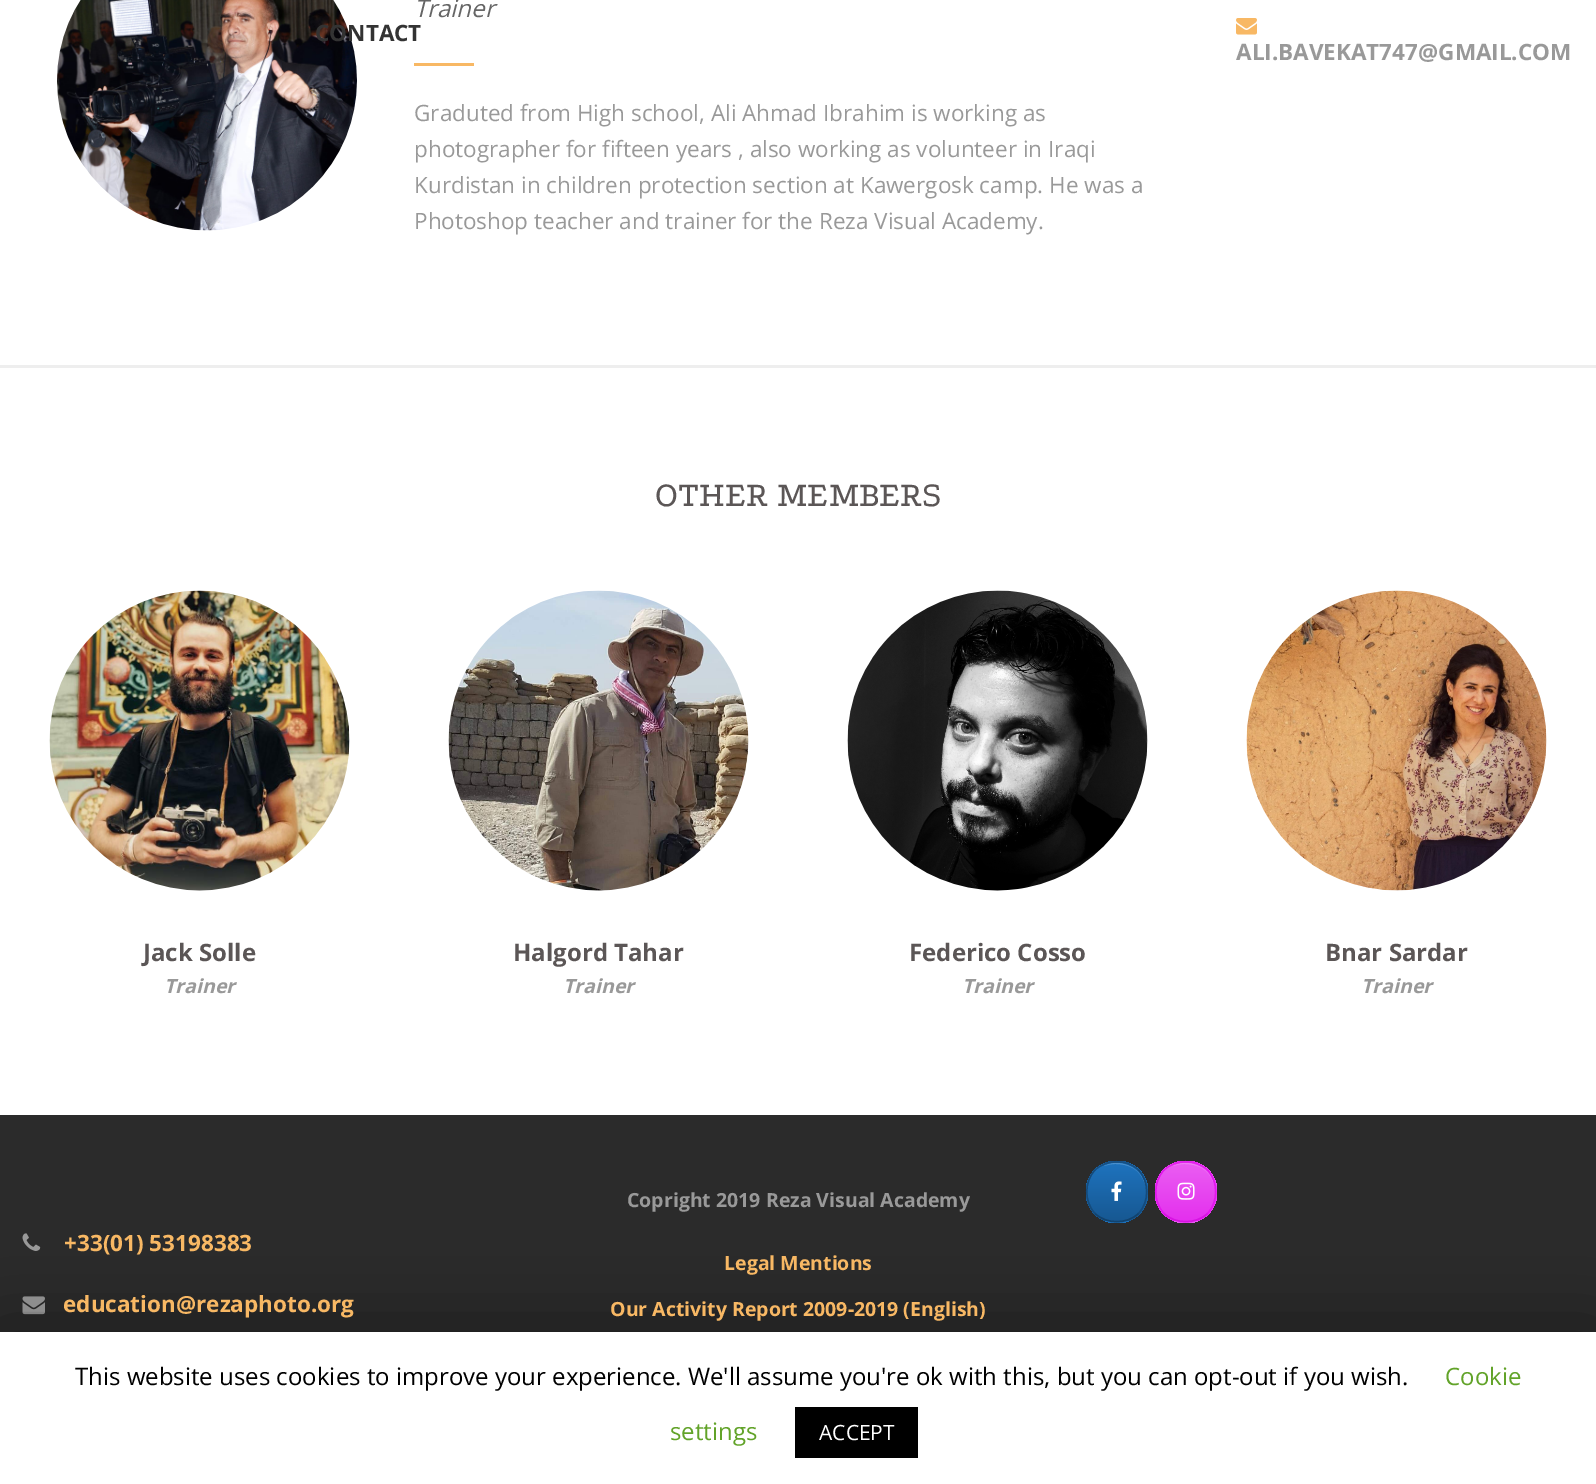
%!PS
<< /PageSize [1596 1484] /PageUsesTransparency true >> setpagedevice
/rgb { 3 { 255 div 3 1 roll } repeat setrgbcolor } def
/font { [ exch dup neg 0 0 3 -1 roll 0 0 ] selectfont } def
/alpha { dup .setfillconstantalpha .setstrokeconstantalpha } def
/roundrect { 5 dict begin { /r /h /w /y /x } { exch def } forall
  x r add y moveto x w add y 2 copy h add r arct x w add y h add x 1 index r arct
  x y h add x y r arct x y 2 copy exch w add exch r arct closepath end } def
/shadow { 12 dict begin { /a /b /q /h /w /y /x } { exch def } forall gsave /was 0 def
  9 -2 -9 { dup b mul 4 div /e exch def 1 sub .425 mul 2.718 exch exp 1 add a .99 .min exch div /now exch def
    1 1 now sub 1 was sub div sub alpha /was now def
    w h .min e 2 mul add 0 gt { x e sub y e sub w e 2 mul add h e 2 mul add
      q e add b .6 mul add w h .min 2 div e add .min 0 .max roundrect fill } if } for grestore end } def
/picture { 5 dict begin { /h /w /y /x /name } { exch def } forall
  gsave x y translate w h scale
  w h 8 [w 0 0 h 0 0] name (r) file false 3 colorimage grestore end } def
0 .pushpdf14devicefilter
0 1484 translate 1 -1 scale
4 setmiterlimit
255 255 255 rgb
0 0 1596 1484 rectfill
(img/1.rgb) 57 0 300 231 picture
248 184 100 rgb
414 63 60 3 rectfill
(img/2.rgb) 1236 18 21 17 picture
238 238 238 rgb
0 365 1596 3 rectfill
(img/3.rgb) 49 590 301 301 picture
(img/4.rgb) 448 590 301 301 picture
(img/5.rgb) 847 590 301 301 picture
(img/6.rgb) 1246 590 301 301 picture
43 43 43 rgb
0 1115 1596 217 rectfill
(img/7.rgb) 22 1233 19 18 picture
(img/8.rgb) 22 1296 23 19 picture
gsave
1086 1161 62 62 30 roundrect clip newpath
gsave 1105 1161 moveto 1129 1161 lineto 1129 1163 lineto 1105 1163 lineto closepath clip newpath
<< /ShadingType 2 /ColorSpace /DeviceRGB /Coords [1088 1163 1088 1104] /Extend [true true] /Function << /FunctionType 2 /Domain [0 1] /C0 [0.09 0.345 0.573] /C1 [0.118 0.451 0.745] /N 1 >> >> shfill grestore
gsave 1086 1163 moveto 1148 1163 lineto 1148 1221 lineto 1086 1221 lineto closepath clip newpath
<< /ShadingType 2 /ColorSpace /DeviceRGB /Coords [1088 1221 1088 1163] /Extend [true true] /Function << /FunctionType 2 /Domain [0 1] /C0 [0.09 0.345 0.573] /C1 [0.118 0.451 0.745] /N 1 >> >> shfill grestore
gsave 1105 1221 moveto 1129 1221 lineto 1129 1223 lineto 1105 1223 lineto closepath clip newpath
<< /ShadingType 2 /ColorSpace /DeviceRGB /Coords [1088 1280 1088 1221] /Extend [true true] /Function << /FunctionType 2 /Domain [0 1] /C0 [0.09 0.345 0.573] /C1 [0.118 0.451 0.745] /N 1 >> >> shfill grestore
grestore
75 143 203 rgb
1115 1164 moveto 1129 1164 1140 1169 1145 1184 curveto 1140 1167 1120 1158 1104 1166 curveto 1107 1165 1111 1164 1115 1164 curveto closepath fill
21 80 133 rgb
1.5 setlinewidth
1095 1170 moveto 1106.5 1159 1127 1159 1138.5 1170 curveto stroke
20 75 124 rgb
1138.5 1170 moveto 1149.5 1181.5 1149.5 1202 1138.5 1213.5 curveto stroke
17 67 111 rgb
1138.5 1213.5 moveto 1127 1224.5 1106.5 1224.5 1095 1213.5 curveto stroke
20 75 124 rgb
1095 1213.5 moveto 1084 1202 1084 1181.5 1095 1170 curveto stroke
(img/9.rgb) 1111 1181 11 20 picture
gsave
1155 1161 62 62 30 roundrect clip newpath
gsave 1174 1161 moveto 1198 1161 lineto 1198 1163 lineto 1174 1163 lineto closepath clip newpath
<< /ShadingType 2 /ColorSpace /DeviceRGB /Coords [1157 1163 1157 1104] /Extend [true true] /Function << /FunctionType 2 /Domain [0 1] /C0 [0.894 0.184 0.933] /C1 [0.918 0.369 0.949] /N 1 >> >> shfill grestore
gsave 1155 1163 moveto 1217 1163 lineto 1217 1221 lineto 1155 1221 lineto closepath clip newpath
<< /ShadingType 2 /ColorSpace /DeviceRGB /Coords [1157 1221 1157 1163] /Extend [true true] /Function << /FunctionType 2 /Domain [0 1] /C0 [0.894 0.184 0.933] /C1 [0.918 0.369 0.949] /N 1 >> >> shfill grestore
gsave 1174 1221 moveto 1198 1221 lineto 1198 1223 lineto 1174 1223 lineto closepath clip newpath
<< /ShadingType 2 /ColorSpace /DeviceRGB /Coords [1157 1280 1157 1221] /Extend [true true] /Function << /FunctionType 2 /Domain [0 1] /C0 [0.894 0.184 0.933] /C1 [0.918 0.369 0.949] /N 1 >> >> shfill grestore
grestore
238 126 245 rgb
1184 1164 moveto 1198 1164 1209 1169 1214 1184 curveto 1209 1167 1189 1158 1173 1166 curveto 1176 1165 1180 1164 1184 1164 curveto closepath fill
226 33 237 rgb
1164 1170 moveto 1175.5 1159 1196 1159 1207.5 1170 curveto stroke
225 23 236 rgb
1207.5 1170 moveto 1218.5 1181.5 1218.5 1202 1207.5 1213.5 curveto stroke
215 18 226 rgb
1207.5 1213.5 moveto 1196 1224.5 1175.5 1224.5 1164 1213.5 curveto stroke
225 23 236 rgb
1164 1213.5 moveto 1153 1202 1153 1181.5 1164 1170 curveto stroke
(img/10.rgb) 1177 1182 18 18 picture
0 0 0 rgb
0 1340 1596 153 0 37.5 0.5 shadow
255 255 255 rgb
0 1332 1596 152 rectfill
0 0 0 rgb
795 1407 123 51 rectfill
/OpenSans-Italic 24 font
102 102 102 rgb
414 17 moveto (Trainer) show
/OpenSans-Regular 22.5 font
153 153 153 rgb
[
  [(Graduted from High school, Ali Ahmad Ibrahim is working as) 414 121]
  [(photographer for fifteen years , also working as volunteer in Iraqi) 414 157]
  [(Kurdistan in children protection section at Kawergosk camp. He was a) 414 193]
  [(Photoshop teacher and trainer for the Reza Visual Academy.) 414 229]
] { aload pop moveto show } forall
/OpenSans-Bold 22.5 font
1236 60 moveto (ALI.BAVEKAT747@GMAIL.COM) show
/Podkova-Regular 36 font
91 86 86 rgb
655 506 moveto (OTHER MEMBERS) show
/OpenSans-Bold 24 font
143 961 moveto (Jack Solle) show
/OpenSans-BoldItalic 19.5 font
153 153 153 rgb
164 993 moveto (Trainer) show
/OpenSans-Bold 24 font
91 86 86 rgb
513 961 moveto (Halgord Tahar) show
/OpenSans-BoldItalic 19.5 font
153 153 153 rgb
563 993 moveto (Trainer) show
/OpenSans-Bold 24 font
91 86 86 rgb
909 961 moveto (Federico Cosso) show
/OpenSans-BoldItalic 19.5 font
153 153 153 rgb
962 993 moveto (Trainer) show
/OpenSans-Bold 24 font
91 86 86 rgb
1325 961 moveto (Bnar Sardar) show
/OpenSans-BoldItalic 19.5 font
153 153 153 rgb
1361 993 moveto (Trainer) show
/OpenSans-Bold 22.5 font
248 184 100 rgb
64 1251 moveto (+33\(01\) 53198383) show
63 1312 moveto (education@rezaphoto.org) show
/OpenSans-Bold 19.5 font
153 153 153 rgb
627 1207 moveto (Copright 2019 Reza Visual Academy) show
248 184 100 rgb
724 1270 moveto (Legal Mentions) show
610 1316 moveto (Our Activity Report 2009-2019 \(English\)) show
/OpenSans-Bold 22.5 font
51 51 51 rgb
315 41 moveto (CONTACT) show
/OpenSans-Regular 24 font
0 0 0 rgb
75 1385 moveto (This website uses cookies to improve your experience. We'll assume you're ok with this, but you can opt-out if you wish.) show
98 163 41 rgb
1445 1385 moveto (Cookie) show
670 1440 moveto (settings) show
/OpenSans-Regular 21 font
255 255 255 rgb
819 1440 moveto (ACCEPT) show
.poppdf14devicefilter showpage
